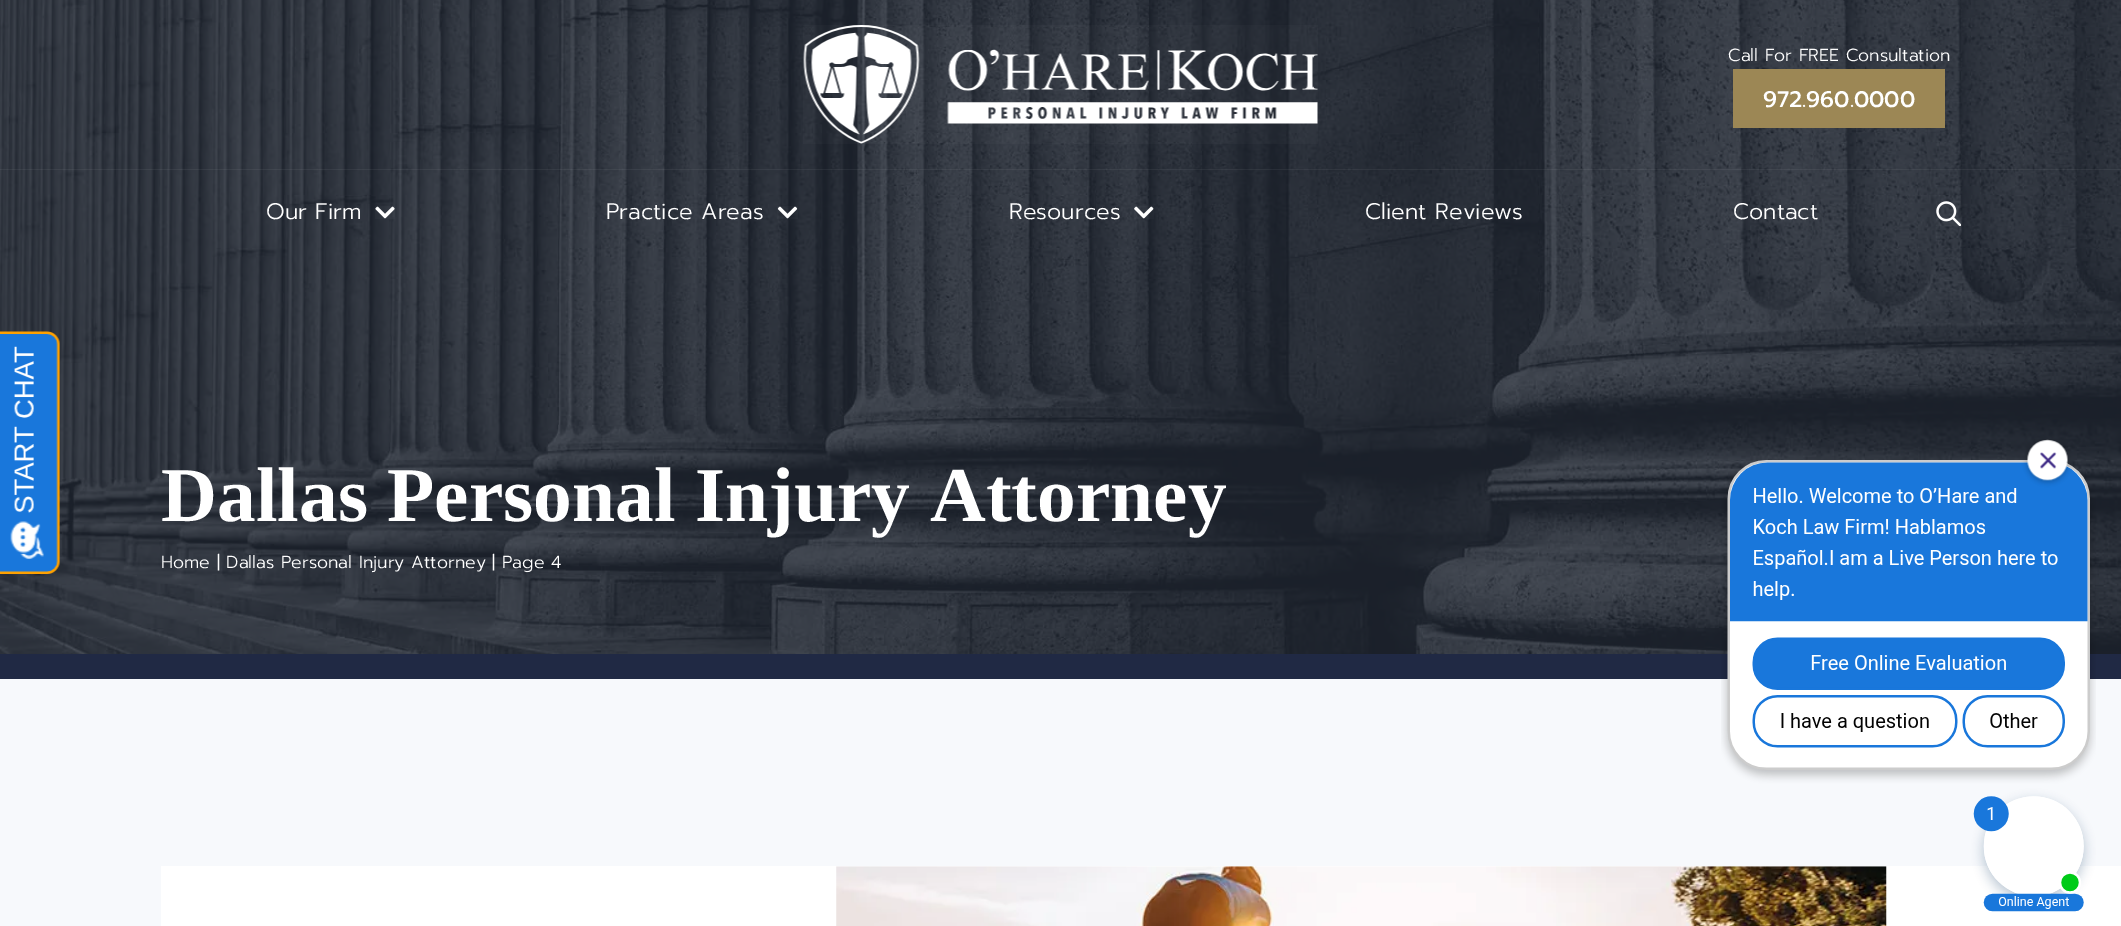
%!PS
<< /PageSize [2121 926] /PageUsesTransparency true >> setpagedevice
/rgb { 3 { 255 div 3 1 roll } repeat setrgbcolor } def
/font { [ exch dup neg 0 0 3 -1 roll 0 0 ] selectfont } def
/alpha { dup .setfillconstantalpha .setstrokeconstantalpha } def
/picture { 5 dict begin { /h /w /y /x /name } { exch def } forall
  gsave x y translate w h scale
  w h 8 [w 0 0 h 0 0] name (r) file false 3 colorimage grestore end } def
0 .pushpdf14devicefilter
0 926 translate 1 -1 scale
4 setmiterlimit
255 255 255 rgb
0 0 2121 926 rectfill
(img/7.rgb) 0 0 2121 654 picture
(img/1.rgb) 803 25 515 119 picture
156 135 85 rgb
1733 69 212 59 rectfill
0.06 alpha
237 239 242 rgb
0 169 2121 1 rectfill
1 alpha
(img/2.rgb) 375 206 20 13 picture
(img/3.rgb) 777 206 21 13 picture
(img/4.rgb) 1134 206 20 13 picture
(img/5.rgb) 1936 201 25 25 picture
(img/6.rgb) 0 331 60 243 picture
[
  [0 654 2121 25 32 41 68]
  [0 679 2121 247 247 249 252]
  [161 866 1960 60 255 255 255]
] { aload pop rgb rectfill } forall
(img/8.rgb) 836 866 1051 60 picture
(img/9.rgb) 1721 439 375 473 picture
/Prompt-Light 17.5 font
1728 61 moveto (Call For FREE Consultation) show
/Prompt-Medium 22.5 font
1763 107 moveto (972.960.0000) show
/Prompt-Light 22.5 font
[
  [(Our Firm) 266 219]
  [(Practice Areas) 606 219]
  [(Resources) 1009 219]
  [(Client Reviews) 1365 219]
  [(Contact) 1733 219]
] { aload pop moveto show } forall
/LiberationSerif-Bold 77.5 font
161 521 moveto (Dallas Personal Injury Attorney) show
/Prompt-Light 17.5 font
161 568 moveto (Home | Dallas Personal Injury Attorney | Page 4) show
.poppdf14devicefilter showpage
